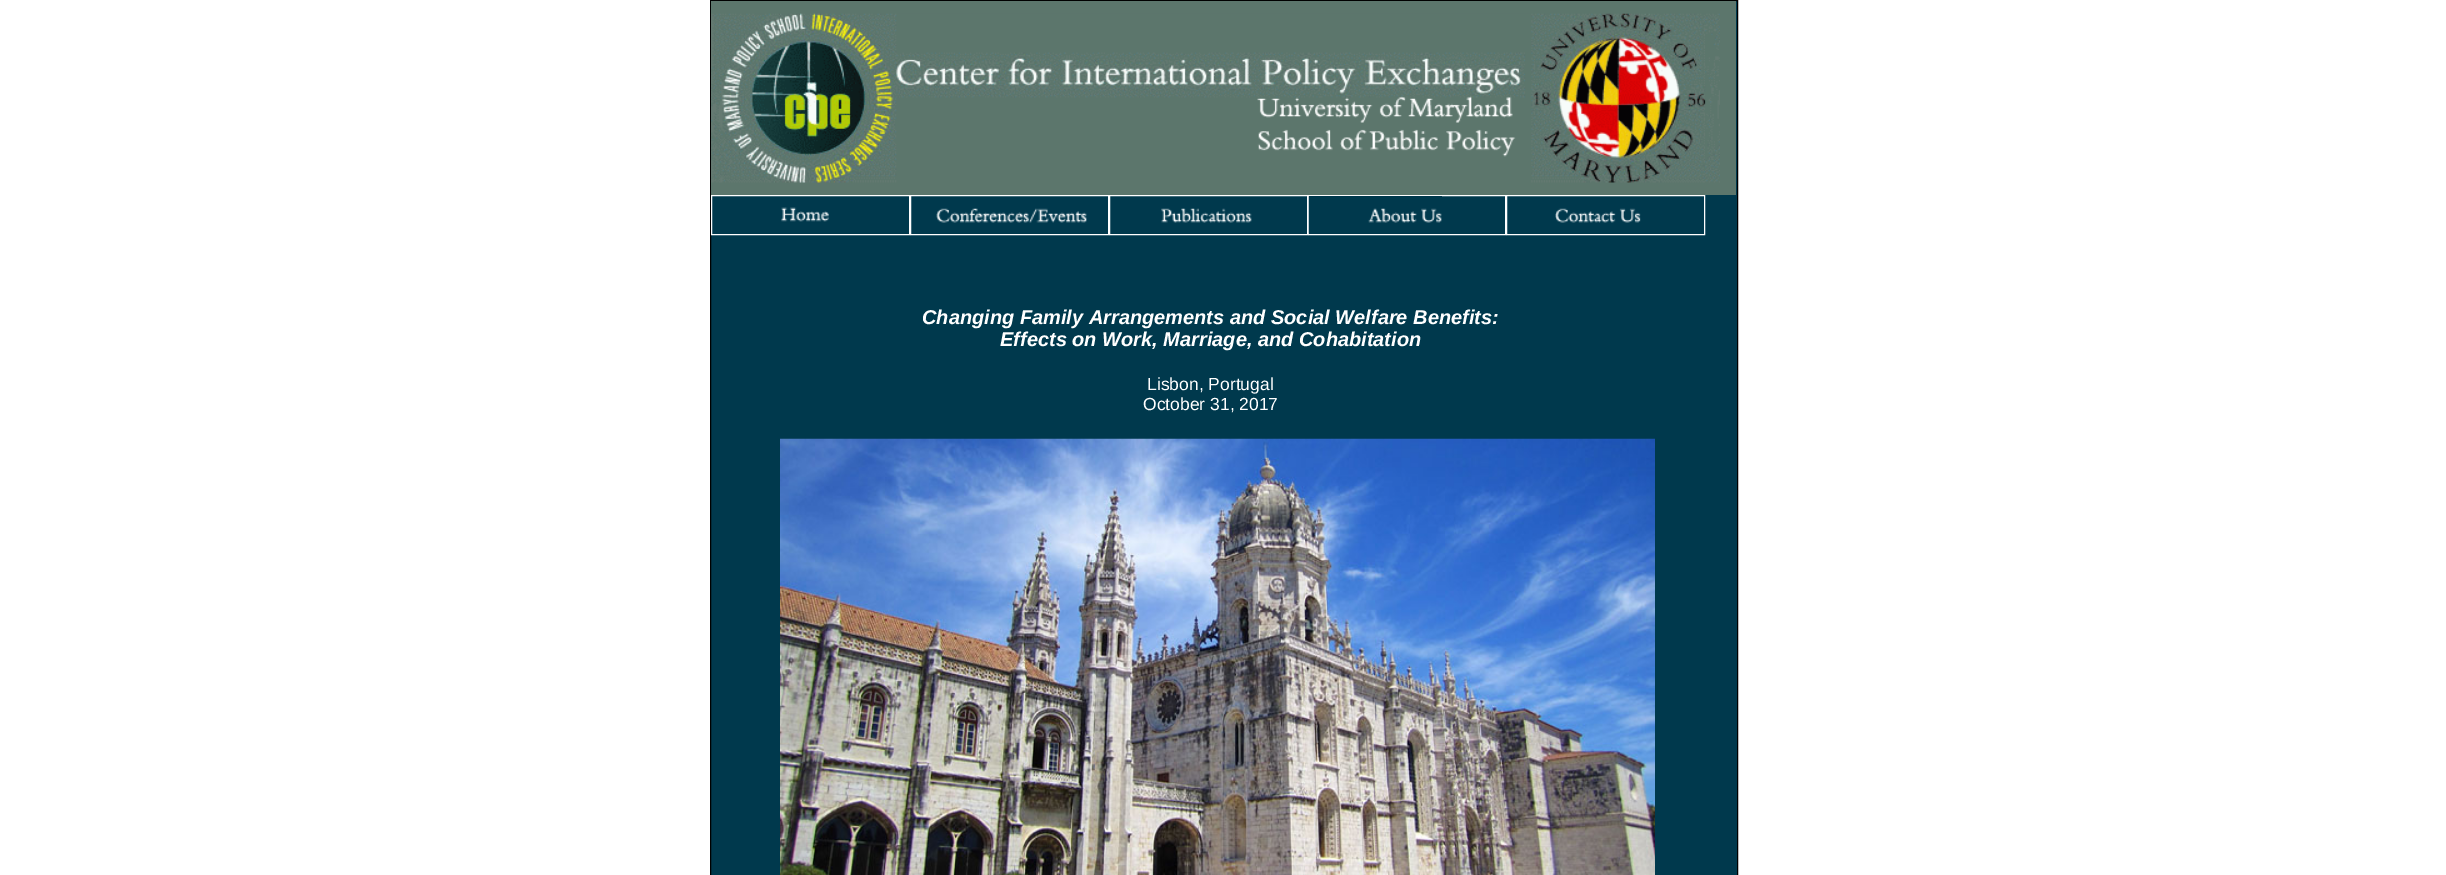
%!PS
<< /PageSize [2446 875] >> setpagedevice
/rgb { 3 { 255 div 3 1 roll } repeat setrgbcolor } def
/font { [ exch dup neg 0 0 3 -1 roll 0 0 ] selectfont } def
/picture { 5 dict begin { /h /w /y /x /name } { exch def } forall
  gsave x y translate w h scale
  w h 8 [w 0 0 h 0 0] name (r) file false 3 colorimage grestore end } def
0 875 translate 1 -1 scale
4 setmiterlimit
255 255 255 rgb
0 0 2446 875 rectfill
0 57 77 rgb
710.5 0.5 moveto 1737.5 0.5 lineto 1737.5 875.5 lineto 710.5 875.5 lineto closepath gsave fill grestore
0 0 0 rgb
stroke
92 118 108 rgb
711 1 1025 194 rectfill
(img/1.rgb) 711 13 1009 170 picture
255 255 255 rgb
711.5 195.5 198 39 rectstroke
910.5 195.5 198 39 rectstroke
1109.5 195.5 198 39 rectstroke
1308.5 195.5 197 39 rectstroke
1506.5 195.5 198 39 rectstroke
(img/2.rgb) 781 207 48 15 picture
(img/3.rgb) 936 208 151 15 picture
(img/4.rgb) 1161 208 91 15 picture
(img/5.rgb) 1308 196 134 38 picture
(img/6.rgb) 1555 208 86 15 picture
(img/7.rgb) 780 438 875 437 picture
/LiberationSans-BoldItalic 20 font
922 324 moveto (Changing Family Arrangements and Social Welfare Benefits:) show
1000 346 moveto (Effects on Work, Marriage, and Cohabitation) show
/LiberationSans-Regular 17.5 font
1147 390 moveto (Lisbon, Portugal) show
1143 410 moveto (October 31, 2017) show
showpage
